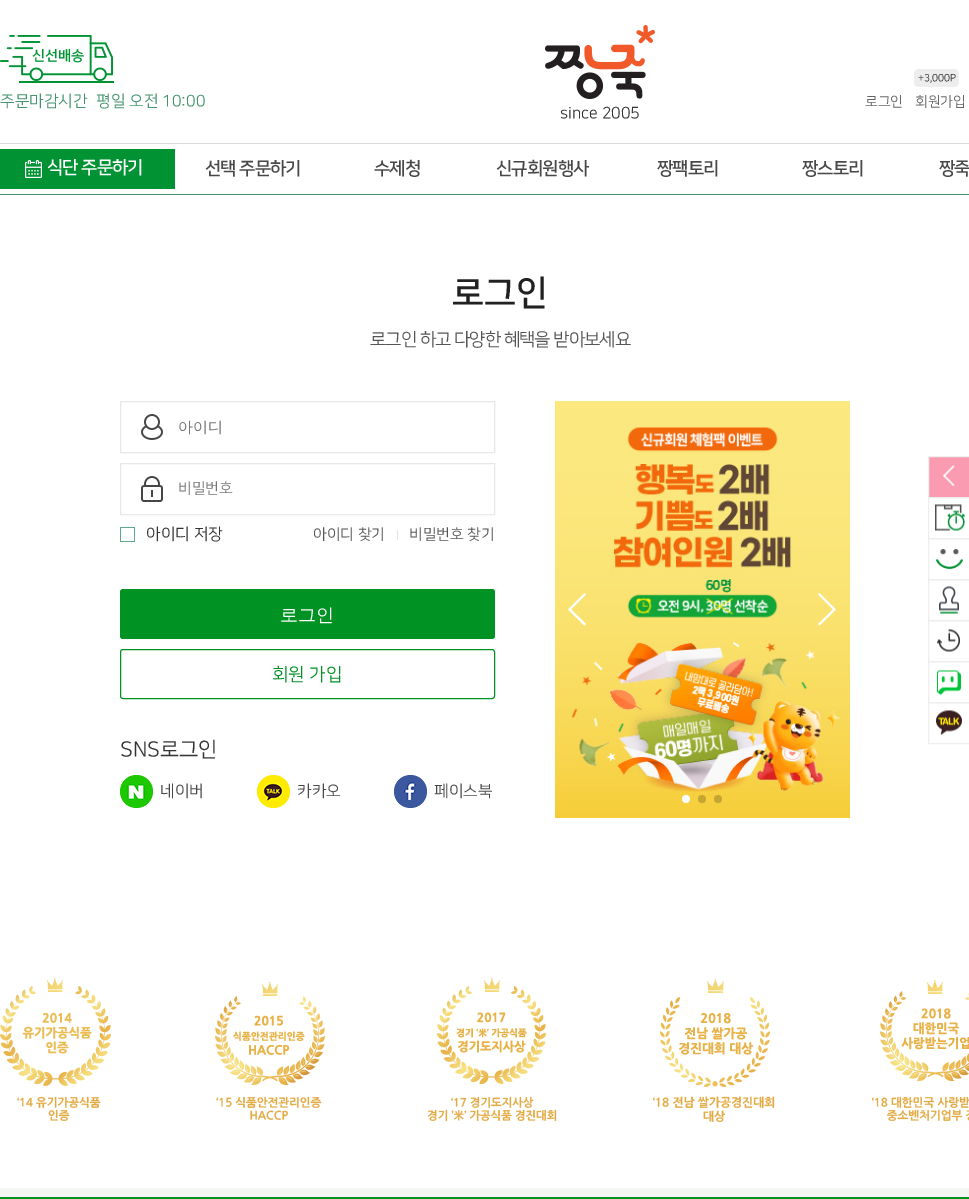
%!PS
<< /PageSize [969 1199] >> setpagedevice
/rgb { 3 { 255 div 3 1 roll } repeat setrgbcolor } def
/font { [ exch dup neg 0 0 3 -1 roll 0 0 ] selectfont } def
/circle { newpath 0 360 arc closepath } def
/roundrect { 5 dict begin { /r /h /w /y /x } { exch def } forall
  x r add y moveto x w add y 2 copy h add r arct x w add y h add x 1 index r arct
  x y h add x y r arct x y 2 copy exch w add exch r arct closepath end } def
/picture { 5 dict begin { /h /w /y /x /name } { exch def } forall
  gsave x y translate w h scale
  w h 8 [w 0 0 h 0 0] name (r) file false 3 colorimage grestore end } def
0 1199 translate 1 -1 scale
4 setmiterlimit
255 255 255 rgb
0 0 969 1199 rectfill
(img/1.rgb) 0 35 114 48 picture
238 237 237 rgb
914 69 45 18 5 roundrect fill
(img/2.rgb) 545 25 110 74 picture
[
  [0 143 969 1 219 219 219]
  [0 194 969 1 67 148 110]
  [0 149 175 40 0 146 51]
] { aload pop rgb rectfill } forall
(img/3.rgb) 25 160 17 18 picture
(img/4.rgb) 141 414 22 26 picture
232 232 232 rgb
120.5 401.5 374 51 rectstroke
(img/5.rgb) 141 476 22 26 picture
120.5 463.5 374 51 rectstroke
(img/6.rgb) 120 527 15 15 picture
227 227 227 rgb
397 530 1 10 rectfill
0 146 35 rgb
120 589 375 50 3 roundrect fill
120.5 649.5 374 49 2.5 roundrect stroke
31 200 0 rgb
136.5 791.5 16.5 circle fill
(img/7.rgb) 121 777 30 30 picture
255 235 0 rgb
273.5 791.5 16.5 circle fill
(img/8.rgb) 258 777 30 30 picture
59 87 157 rgb
410.5 791.5 16.5 circle fill
(img/9.rgb) 395 776 30 30 picture
(img/10.rgb) 555 401 295 417 picture
255 255 255 rgb
568 609.5 moveto 584.5 593 lineto 586 594.5 lineto 571 609.5 lineto 586 624 lineto 584.5 625.5 lineto closepath fill
836 609.5 moveto 819.5 625.5 lineto 818 624 lineto 833 609.5 lineto 818 594.5 lineto 819.5 593 lineto closepath fill
686 799 4 circle fill
197 166 50 rgb
702 799 4 circle fill
718 799 4 circle fill
(img/11.rgb) 0 978 111 143 picture
(img/12.rgb) 215 982 110 138 picture
(img/13.rgb) 427 978 130 143 picture
(img/14.rgb) 652 979 123 144 picture
(img/15.rgb) 871 980 98 141 picture
[
  [0 1188 969 9 245 247 243]
  [0 1197 969 2 0 146 35]
  [929 457 40 40 250 155 177]
] { aload pop rgb rectfill } forall
(img/16.rgb) 943 465 12 22 picture
238 238 238 rgb
928.5 456.5 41 41 rectstroke
(img/17.rgb) 935 504 30 27 picture
928.5 497.5 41 41 rectstroke
(img/18.rgb) 936 549 27 20 picture
928.5 538.5 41 41 rectstroke
(img/19.rgb) 939 586 20 28 picture
928.5 579.5 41 41 rectstroke
(img/20.rgb) 937 629 23 23 picture
928.5 620.5 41 41 rectstroke
(img/21.rgb) 937 670 24 25 picture
928.5 661.5 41 41 rectstroke
(img/22.rgb) 936 710 26 25 picture
928.5 702.5 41 41 rectstroke
/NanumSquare-Regular 16 font
67 148 110 rgb
0 106 moveto (주문마감시간) show
96 106 moveto (평일 오전 10:00) show
/NanumSquare-Regular 14 font
100 100 100 rgb
865 106 moveto (로그인) show
/NanumSquare-Regular 10 font
33 33 33 rgb
918 81 moveto (+3,000P) show
/NanumSquare-Regular 14 font
100 100 100 rgb
915 106 moveto (회원가입) show
/NanumSquare-Regular 16 font
51 51 51 rgb
560 118 moveto (since 2005) show
/NanumSquare-Bold 18 font
255 255 255 rgb
47 173 moveto -1 0 (식단 주문하기) ashow
72 72 72 rgb
205 174 moveto -1 0 (선택 주문하기) ashow
374 174 moveto -1 0 (수제청) ashow
496 174 moveto -1 0 (신규회원행사) ashow
657 174 moveto -1 0 (짱팩토리) ashow
802 174 moveto -1 0 (짱스토리) ashow
939 174 moveto -1 0 (짱죽) ashow
/NanumSquare-Bold 35 font
33 33 33 rgb
452 304 moveto (로그인) show
/NanumSquare-Regular 18 font
85 85 85 rgb
370 345 moveto -1 0 (로그인 하고 다양한 혜택을 받아보세요) ashow
/WenQuanYiZenHei-Medium 15 font
117 117 117 rgb
178 432 moveto (아이디) show
/NanumSquare-Regular 15 font
178 493 moveto (비밀번호) show
/NanumSquare-Regular 16 font
51 51 51 rgb
146 539 moveto (아이디 저장) show
/NanumSquare-Regular 15 font
85 85 85 rgb
313 539 moveto (아이디 찾기) show
409 539 moveto (비밀번호 찾기) show
/WenQuanYiZenHei-Medium 18 font
255 255 255 rgb
280 621 moveto (로그인) show
/NanumSquare-Regular 18 font
0 146 35 rgb
272 680 moveto (회원 가입) show
/NanumSquare-Regular 21 font
51 51 51 rgb
120 756 moveto (SNS로그인) show
/NanumSquare-Regular 16 font
72 72 72 rgb
[
  [(네이버) 160 796]
  [(카카오) 297 796]
  [(페이스북) 434 796]
] { aload pop moveto show } forall
showpage
